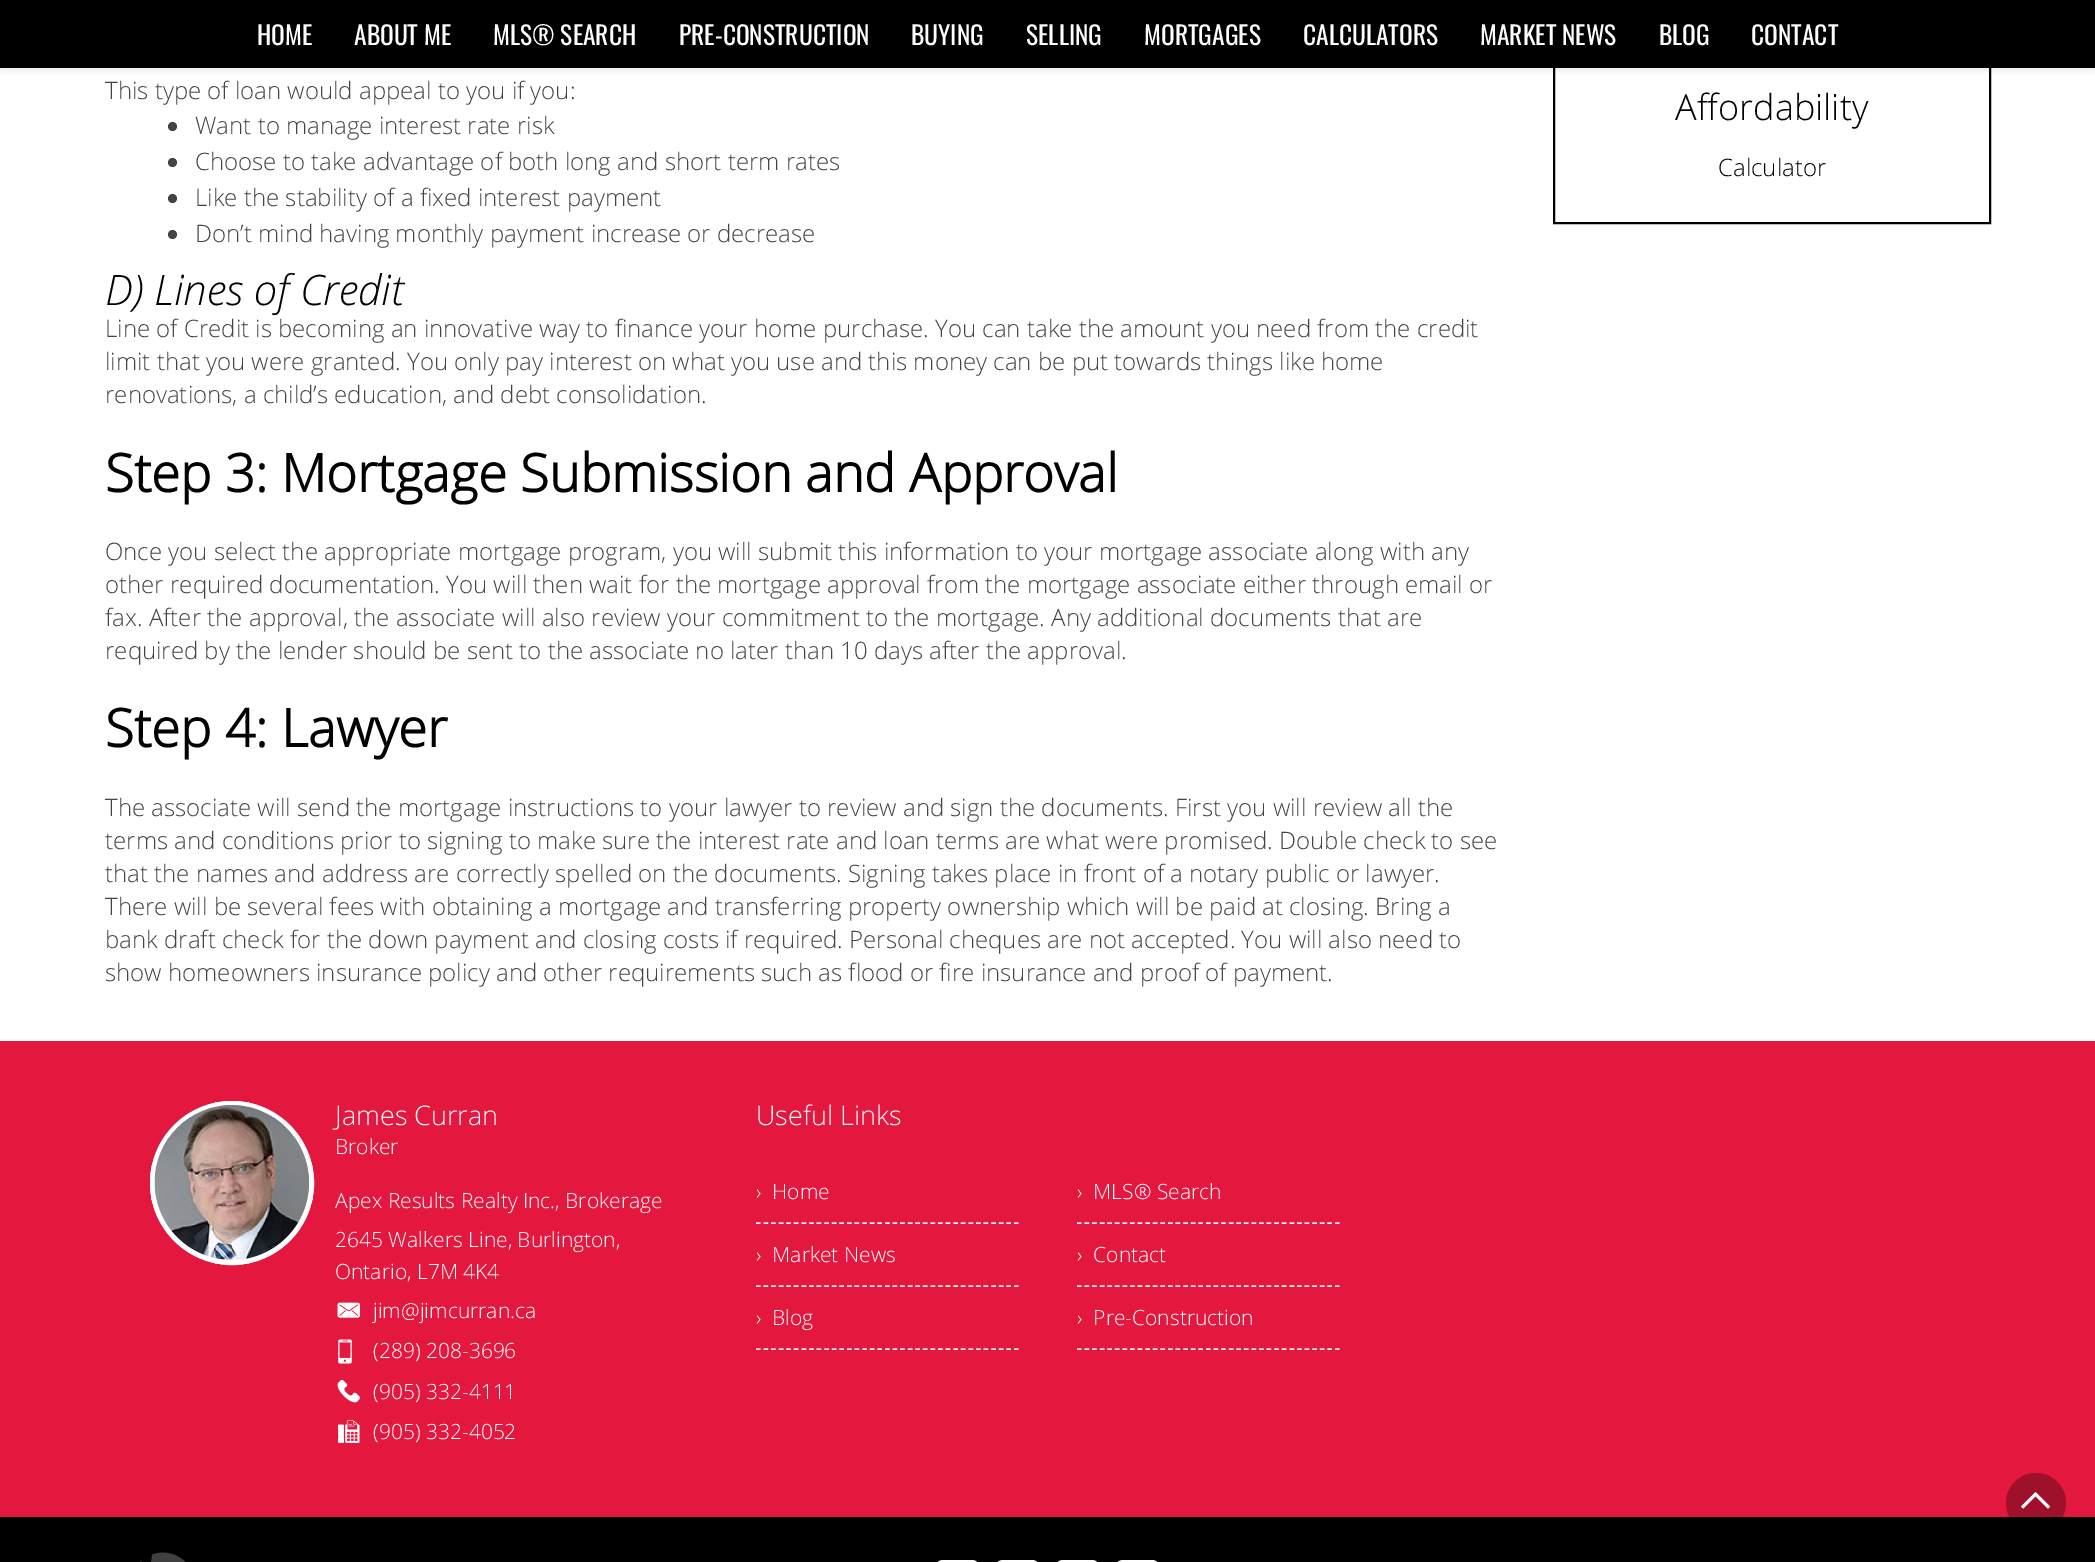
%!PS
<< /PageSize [2095 1562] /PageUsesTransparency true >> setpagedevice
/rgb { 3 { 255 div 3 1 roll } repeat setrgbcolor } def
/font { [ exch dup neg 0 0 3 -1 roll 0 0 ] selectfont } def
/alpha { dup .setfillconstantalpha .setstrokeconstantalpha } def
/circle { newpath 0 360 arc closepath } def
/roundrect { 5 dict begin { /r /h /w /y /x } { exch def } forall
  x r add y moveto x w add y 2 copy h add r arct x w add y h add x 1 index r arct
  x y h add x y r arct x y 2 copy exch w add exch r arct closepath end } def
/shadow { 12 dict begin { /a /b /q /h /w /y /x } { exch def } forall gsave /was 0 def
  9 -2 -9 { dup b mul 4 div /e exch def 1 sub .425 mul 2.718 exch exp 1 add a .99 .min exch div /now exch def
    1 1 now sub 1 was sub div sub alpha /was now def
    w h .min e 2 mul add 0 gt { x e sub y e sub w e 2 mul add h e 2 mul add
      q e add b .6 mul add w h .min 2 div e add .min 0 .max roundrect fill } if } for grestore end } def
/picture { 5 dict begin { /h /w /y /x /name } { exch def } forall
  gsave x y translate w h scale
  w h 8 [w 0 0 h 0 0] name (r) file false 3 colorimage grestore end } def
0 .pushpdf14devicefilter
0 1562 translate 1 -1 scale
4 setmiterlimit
255 255 255 rgb
0 0 2095 1562 rectfill
0 0 0 rgb
2 setlinewidth
1554 -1 436 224 rectstroke
0 5 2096 67 0 2 0.05 shadow
0 0 2095 68 rectfill
68 68 68 rgb
172.5 126.5 4.5 circle fill
172.5 162.5 4.5 circle fill
172.5 198.5 4.5 circle fill
172.5 234.5 4.5 circle fill
228 23 62 rgb
0 1041 2095 476 rectfill
255 255 255 rgb
232 1183 82 circle fill
(img/1.rgb) 154 1105 155 155 picture
5 setlinewidth
232 1183 79.5 circle stroke
(img/2.rgb) 154 1105 155 155 picture
(img/3.rgb) 337 1302 23 16 picture
(img/4.rgb) 338 1339 14 25 picture
(img/5.rgb) 337 1379 23 24 picture
(img/6.rgb) 338 1420 22 23 picture
238 238 238 rgb
1.5 setlinewidth
[4.5 3.09] 0 setdash
756 1223 moveto 1018.5 1223 lineto stroke
1077 1223 moveto 1339.5 1223 lineto stroke
756 1286 moveto 1018.5 1286 lineto stroke
1077 1286 moveto 1339.5 1286 lineto stroke
756 1349 moveto 1018.5 1349 lineto stroke
1077 1349 moveto 1339.5 1349 lineto stroke
0 0 0 rgb
0 1517 2095 45 rectfill
(img/7.rgb) 140 1552 46 10 picture
255 255 255 rgb
3 setlinewidth
[] 0 setdash
936.5 1561.5 42 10 6.5 roundrect stroke
996.5 1561.5 42 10 6.5 roundrect stroke
1056.5 1561.5 42 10 6.5 roundrect stroke
1116.5 1561.5 42 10 6.5 roundrect stroke
0.3 alpha
0 0 0 rgb
2036 1503 30 circle fill
1 alpha
(img/8.rgb) 2021 1492 29 17 picture
/Oswald-Regular 25.5 font
255 255 255 rgb
[
  [(HOME) 257 45]
  [(ABOUT ME) 354 45]
  [(MLS® SEARCH) 493 45]
  [(PRE-CONSTRUCTION) 679 45]
  [(BUYING) 911 45]
  [(SELLING) 1026 45]
  [(MORTGAGES) 1144 45]
  [(CALCULATORS) 1303 45]
  [(MARKET NEWS) 1480 45]
  [(BLOG) 1659 45]
  [(CONTACT) 1751 45]
] { aload pop moveto show } forall
/OpenSans-Light 24 font
68 68 68 rgb
[
  [(This type of loan would appeal to you if you:) 105 99]
  [(Want to manage interest rate risk) 195 134]
  [(Choose to take advantage of both long and short term rates) 195 170]
  [(Like the stability of a fixed interest payment) 195 206]
  [(Don’t mind having monthly payment increase or decrease) 195 242]
] { aload pop moveto show } forall
/OpenSans-LightItalic 42 font
0 0 0 rgb
105 305 moveto (D\) Lines of Credit) show
/OpenSans-Light 24 font
68 68 68 rgb
[
  [(Line of Credit is becoming an innovative way to finance your home purchase. You can take the amount you need from the credit) 105 337]
  [(limit that you were granted. You only pay interest on what you use and this money can be put towards things like home) 105 370]
  [(renovations, a child’s education, and debt consolidation.) 105 403]
] { aload pop moveto show } forall
/OpenSans-Bold 52.5 font
0 0 0 rgb
105 492 moveto (Step 3: Mortgage Submission and Approval) show
/OpenSans-Light 24 font
68 68 68 rgb
[
  [(Once you select the appropriate mortgage program, you will submit this information to your mortgage associate along with any) 105 560]
  [(other required documentation. You will then wait for the mortgage approval from the mortgage associate either through email or) 105 593]
  [(fax. After the approval, the associate will also review your commitment to the mortgage. Any additional documents that are) 105 626]
  [(required by the lender should be sent to the associate no later than 10 days after the approval.) 105 659]
] { aload pop moveto show } forall
/OpenSans-Bold 52.5 font
0 0 0 rgb
105 747 moveto (Step 4: Lawyer) show
/OpenSans-Light 24 font
68 68 68 rgb
[
  [(The associate will send the mortgage instructions to your lawyer to review and sign the documents. First you will review all the) 105 816]
  [(terms and conditions prior to signing to make sure the interest rate and loan terms are what were promised. Double check to see) 105 849]
  [(that the names and address are correctly spelled on the documents. Signing takes place in front of a notary public or lawyer.) 105 882]
  [(There will be several fees with obtaining a mortgage and transferring property ownership which will be paid at closing. Bring a) 105 915]
  [(bank draft check for the down payment and closing costs if required. Personal cheques are not accepted. You will also need to) 105 948]
  [(show homeowners insurance policy and other requirements such as flood or fire insurance and proof of payment.) 105 981]
] { aload pop moveto show } forall
/OpenSans-Light 36 font
0 0 0 rgb
1675 120 moveto (Affordability) show
/OpenSans-Light 24 font
1718 176 moveto (Calculator) show
/OpenSans-Light 27 font
255 255 255 rgb
335 1125 moveto (James Curran) show
/OpenSans-Light 21 font
[
  [(Broker) 335 1154]
  [(Apex Results Realty Inc., Brokerage) 335 1208]
  [(2645 Walkers Line, Burlington,) 335 1247]
  [(Ontario, L7M 4K4) 335 1279]
  [(jim@jimcurran.ca) 373 1318]
  [(\(289\) 208-3696) 373 1358]
  [(\(905\) 332-4111) 373 1399]
  [(\(905\) 332-4052) 373 1439]
] { aload pop moveto show } forall
/OpenSans-Light 27 font
756 1125 moveto (Useful Links) show
/OpenSans-Light 21 font
[
  [(›  Home) 756 1199]
  [(›  MLS® Search) 1077 1199]
  [(›  Market News) 756 1262]
  [(›  Contact) 1077 1262]
  [(›  Blog) 756 1325]
  [(›  Pre-Construction) 1077 1325]
] { aload pop moveto show } forall
.poppdf14devicefilter showpage
